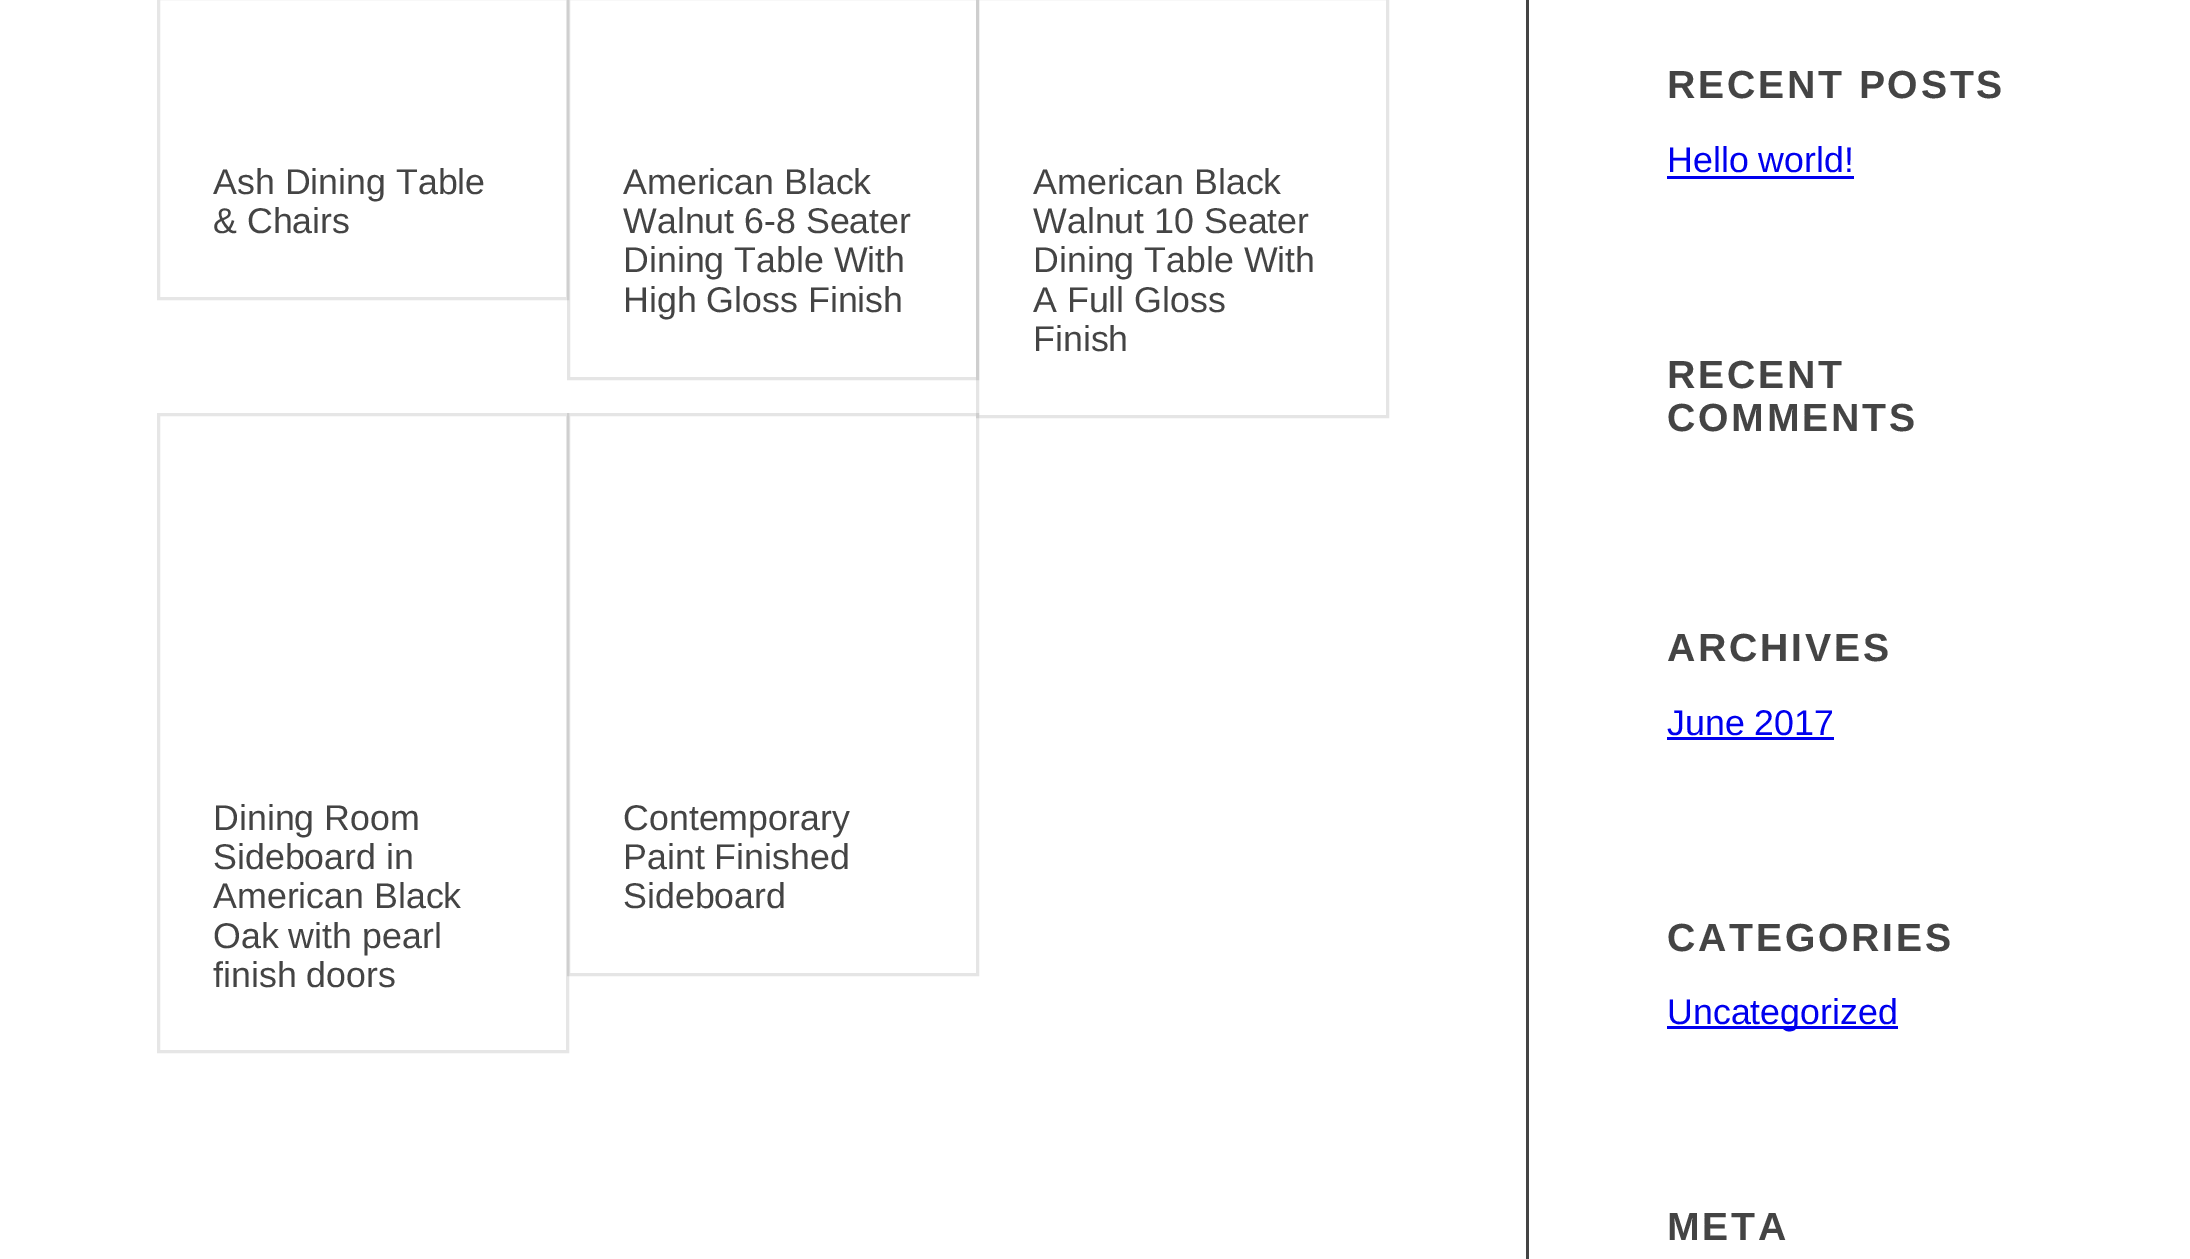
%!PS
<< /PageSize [2190 1259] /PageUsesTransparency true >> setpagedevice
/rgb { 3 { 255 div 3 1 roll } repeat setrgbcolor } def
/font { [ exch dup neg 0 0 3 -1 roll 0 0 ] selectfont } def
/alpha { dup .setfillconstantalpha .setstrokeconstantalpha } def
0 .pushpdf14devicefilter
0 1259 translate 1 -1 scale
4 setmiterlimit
255 255 255 rgb
0 0 2190 1259 rectfill
230 230 230 rgb
3 setlinewidth
158.5 -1.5 409 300 rectstroke
0.1 alpha
0 0 0 rgb
568.5 -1.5 409 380 rectstroke
977.5 -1.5 410 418 rectstroke
1 alpha
230 230 230 rgb
158.5 414.5 409 637 rectstroke
0.1 alpha
0 0 0 rgb
568.5 414.5 409 560 rectstroke
1 alpha
[
  [1526 0 3 1259 68 68 68]
  [1667 176 187 3 0 0 238]
  [1667 737 167 3 0 0 238]
  [1667 1026 231 3 0 0 238]
] { aload pop rgb rectfill } forall
/LiberationSans-Regular 35.75 font
68 68 68 rgb
[
  [(Ash Dining Table) 213 194]
  [(& Chairs) 213 233]
  [(American Black) 623 194]
  [(Walnut 6-8 Seater) 623 233]
  [(Dining Table With) 623 272]
  [(High Gloss Finish) 623 312]
  [(American Black) 1033 194]
  [(Walnut 10 Seater) 1033 233]
  [(Dining Table With) 1033 272]
  [(A Full Gloss) 1033 312]
  [(Finish) 1033 351]
  [(Dining Room) 213 830]
  [(Sideboard in) 213 869]
  [(American Black) 213 908]
  [(Oak with pearl) 213 948]
  [(finish doors) 213 987]
  [(Contemporary) 623 830]
  [(Paint Finished) 623 869]
  [(Sideboard) 623 908]
] { aload pop moveto show } forall
/LiberationSans-Bold 39.25 font
1667 98 moveto 2.75 0 (RECENT POSTS) ashow
/LiberationSans-Regular 35.75 font
0 0 238 rgb
1667 172 moveto (Hello world!) show
/LiberationSans-Bold 39.25 font
68 68 68 rgb
1667 388 moveto 2.75 0 (RECENT) ashow
1667 431 moveto 2.75 0 (COMMENTS) ashow
1667 661 moveto 2.75 0 (ARCHIVES) ashow
/LiberationSans-Regular 35.75 font
0 0 238 rgb
1667 735 moveto (June 2017) show
/LiberationSans-Bold 39.25 font
68 68 68 rgb
1667 951 moveto 2.75 0 (CATEGORIES) ashow
/LiberationSans-Regular 35.75 font
0 0 238 rgb
1667 1024 moveto (Uncategorized) show
/LiberationSans-Bold 39.25 font
68 68 68 rgb
1667 1240 moveto 2.75 0 (META) ashow
.poppdf14devicefilter showpage
